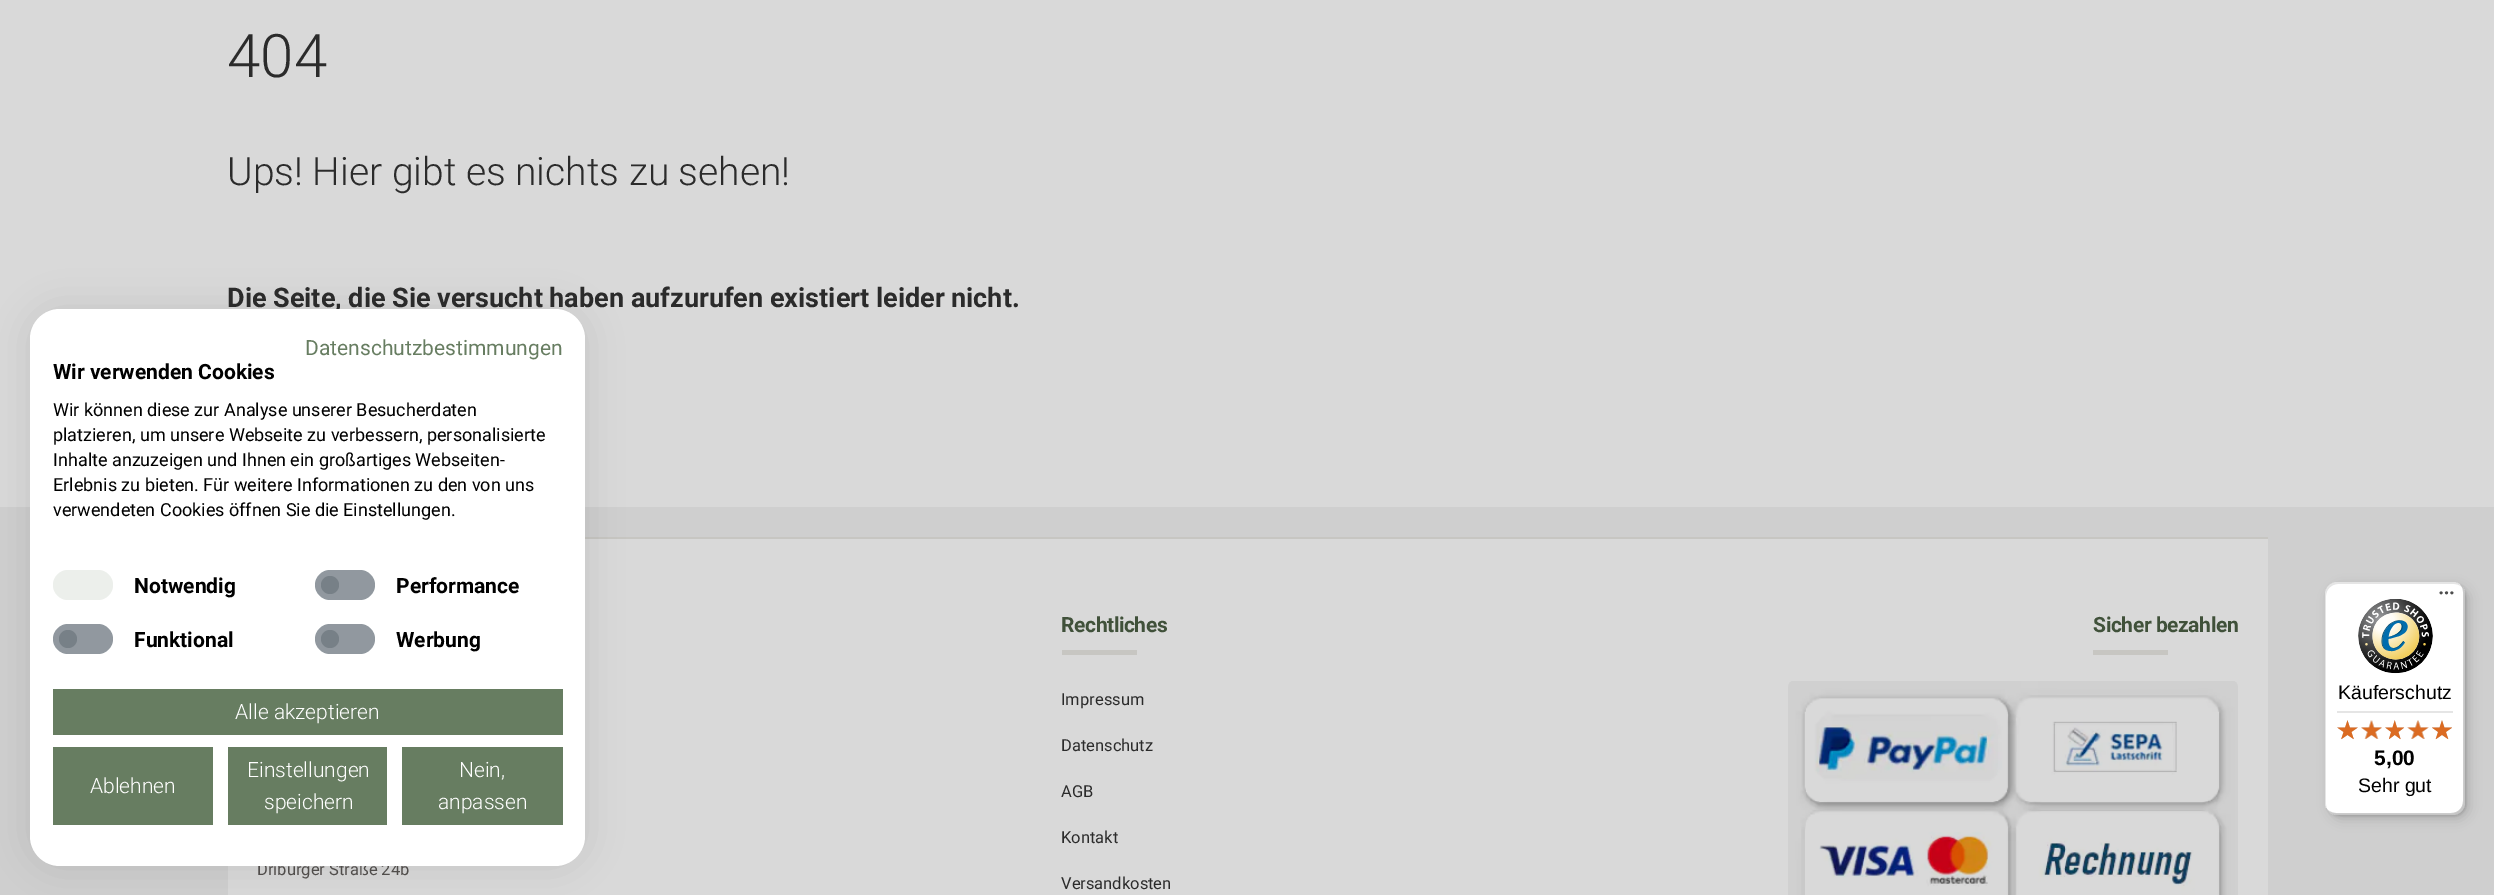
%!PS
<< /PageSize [2494 895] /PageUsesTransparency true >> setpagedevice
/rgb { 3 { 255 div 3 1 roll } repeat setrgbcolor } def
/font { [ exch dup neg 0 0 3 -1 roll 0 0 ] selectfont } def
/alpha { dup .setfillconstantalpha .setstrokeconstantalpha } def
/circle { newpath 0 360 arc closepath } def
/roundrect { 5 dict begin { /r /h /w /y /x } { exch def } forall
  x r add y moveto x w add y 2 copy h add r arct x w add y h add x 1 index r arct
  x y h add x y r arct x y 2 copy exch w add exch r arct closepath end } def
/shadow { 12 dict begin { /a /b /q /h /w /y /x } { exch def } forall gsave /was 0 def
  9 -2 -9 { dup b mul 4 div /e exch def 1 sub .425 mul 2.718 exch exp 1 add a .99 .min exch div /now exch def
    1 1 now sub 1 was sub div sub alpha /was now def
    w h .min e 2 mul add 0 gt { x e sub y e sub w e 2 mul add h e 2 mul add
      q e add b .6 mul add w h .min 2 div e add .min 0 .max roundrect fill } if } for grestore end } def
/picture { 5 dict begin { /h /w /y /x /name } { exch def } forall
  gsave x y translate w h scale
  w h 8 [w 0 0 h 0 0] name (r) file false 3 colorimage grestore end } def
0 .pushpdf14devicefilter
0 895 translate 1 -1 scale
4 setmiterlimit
217 217 217 rgb
0 0 2494 895 rectfill
[
  [0 507 2494 388 207 207 207]
  [228 539 2040 356 217 217 217]
  [585 537 1683 2 199 198 194]
  [1062 650 75 5 199 198 194]
  [2093 650 75 5 199 198 194]
] { aload pop rgb rectfill } forall
(img/1.rgb) 1788 681 450 214 picture
0 0 0 rgb
30 309 555 557 30 18 0.1 shadow
2330 587 139 232 12 6 0.15 shadow
2327 584 139 232 12 1.5 0.15 shadow
255 255 255 rgb
2325 582 140 233 12 roundrect fill
0.1 alpha
0 0 0 rgb
2338 584 moveto 2454 584 lineto 2458 584 2462 586 2464 589 curveto 2462 585 2458 582 2453 582 curveto 2337 582 lineto 2330 582 2325 587 2325 594 curveto 2325 803 lineto 2325 807 2327 810 2329 812 curveto 2327 810 2326 807 2326 804 curveto 2326 596 lineto 2326 589 2332 584 2338 584 curveto closepath fill
0.2 alpha
2326 808 moveto 2328 812 2332 815 2337 815 curveto 2453 815 lineto 2460 815 2465 810 2465 803 curveto 2465 594 lineto 2465 590 2463 587 2460 584 curveto 2462 587 2463 589 2463 592 curveto 2463 801 lineto 2463 808 2458 813 2451 813 curveto 2336 813 lineto 2332 813 2328 811 2326 808 curveto closepath fill
50 50 50 rgb
2328 811 moveto 2330 813 2333 815 2337 815 curveto 2453 815 lineto 2460 815 2465 810 2465 803 curveto 2465 594 lineto 2465 590 2463 587 2461 585 curveto 2463 587 2464 590 2464 593 curveto 2464 802 lineto 2464 808 2458 814 2452 814 curveto 2336 814 lineto 2333 814 2330 813 2328 811 curveto closepath fill
0.3 alpha
255 255 255 rgb
2327 809 moveto 2329 813 2332 815 2337 815 curveto 2453 815 lineto 2460 815 2465 810 2465 803 curveto 2465 594 lineto 2465 589 2463 586 2459 584 curveto 2462 586 2464 589 2464 593 curveto 2464 802 lineto 2464 808 2458 814 2452 814 curveto 2336 814 lineto 2332 814 2329 812 2327 809 curveto closepath fill
1 alpha
(img/2.rgb) 2439 591 15 4 picture
(img/3.rgb) 2358 599 75 75 picture
229 229 229 rgb
2337 711 116 2 rectfill
(img/4.rgb) 2337 720 21 19 picture
(img/5.rgb) 2361 720 21 19 picture
(img/6.rgb) 2385 720 19 19 picture
(img/7.rgb) 2407 720 22 19 picture
(img/8.rgb) 2432 720 20 19 picture
(img/9.rgb) 2337 720 21 20 picture
(img/10.rgb) 2361 720 21 19 picture
(img/11.rgb) 2385 720 20 20 picture
(img/12.rgb) 2407 720 22 19 picture
(img/13.rgb) 2432 720 20 20 picture
/Roboto-Light 60 font
43 43 43 rgb
227 77 moveto (404) show
/Roboto-Light 39 font
227 185 moveto (Ups! Hier gibt es nichts zu sehen!) show
/Roboto-Bold 27 font
227 307 moveto (Die Seite, die Sie versucht haben aufzurufen existiert leider nicht.) show
/Roboto-Bold 21 font
64 81 58 rgb
1061 632 moveto -0.4 0 (Rechtliches) ashow
/Roboto-Regular 16.5 font
43 43 43 rgb
[
  [(Impressum) 1061 705]
  [(Datenschutz) 1061 751]
  [(AGB) 1061 797]
  [(Kontakt) 1061 843]
  [(Versandkosten) 1061 889]
] { aload pop moveto show } forall
/Roboto-Bold 21 font
64 81 58 rgb
2093 632 moveto -0.4 0 (Sicher bezahlen) ashow
/Roboto-Regular 16.5 font
80 77 75 rgb
257 875 moveto (Driburger Straße 24b) show
255 255 255 rgb
30 309 555 557 30 roundrect fill
/Roboto-Regular 21 font
103 125 97 rgb
305 355 moveto (Datenschutzbestimmungen) show
/Roboto-Bold 21 font
0 0 0 rgb
53 379 moveto (Wir verwenden Cookies) show
/Roboto-Regular 18 font
[
  [(Wir können diese zur Analyse unserer Besucherdaten) 53 416]
  [(platzieren, um unsere Webseite zu verbessern, personalisierte) 53 441]
  [(Inhalte anzuzeigen und Ihnen ein großartiges Webseiten-) 53 466]
  [(Erlebnis zu bieten. Für weitere Informationen zu den von uns) 53 491]
  [(verwendeten Cookies öffnen Sie die Einstellungen.) 53 516]
] { aload pop moveto show } forall
247 249 247 rgb
53 570 60 30 15 roundrect fill
236 239 235 rgb
68 570 moveto 98 570 lineto 106 570 113 577 113 585 curveto 113 593 106 600 98 600 curveto 68 600 lineto 60 600 53 593 53 585 curveto 53 577 60 570 68 570 curveto closepath fill
/Roboto-Bold 21 font
0 0 0 rgb
134 593 moveto (Notwendig) show
233 236 239 rgb
315 570 60 30 15 roundrect fill
146 153 159 rgb
330 585 9 circle fill
0.7 alpha
108 117 125 rgb
330 570 moveto 360 570 lineto 368 570 375 577 375 585 curveto 375 593 368 600 360 600 curveto 330 600 lineto 322 600 315 593 315 585 curveto 315 577 322 570 330 570 curveto closepath fill
1 alpha
0 0 0 rgb
396 593 moveto (Performance) show
233 236 239 rgb
53 624 60 30 15 roundrect fill
146 153 159 rgb
68 639 9 circle fill
0.7 alpha
108 117 125 rgb
68 624 moveto 98 624 lineto 106 624 113 631 113 639 curveto 113 647 106 654 98 654 curveto 68 654 lineto 60 654 53 647 53 639 curveto 53 631 60 624 68 624 curveto closepath fill
1 alpha
0 0 0 rgb
134 647 moveto (Funktional) show
233 236 239 rgb
315 624 60 30 15 roundrect fill
146 153 159 rgb
330 639 9 circle fill
0.7 alpha
108 117 125 rgb
330 624 moveto 360 624 lineto 368 624 375 631 375 639 curveto 375 647 368 654 360 654 curveto 330 654 lineto 322 654 315 647 315 639 curveto 315 631 322 624 330 624 curveto closepath fill
1 alpha
0 0 0 rgb
396 647 moveto (Werbung) show
103 125 97 rgb
53 689 510 46 rectfill
/Roboto-Light 21 font
255 255 255 rgb
235 719 moveto (Alle akzeptieren) show
103 125 97 rgb
53 747 160 78 rectfill
255 255 255 rgb
90 793 moveto (Ablehnen) show
103 125 97 rgb
228 747 159 78 rectfill
255 255 255 rgb
247 777 moveto (Einstellungen) show
264 809 moveto (speichern) show
103 125 97 rgb
402 747 161 78 rectfill
255 255 255 rgb
459 777 moveto (Nein,) show
438 809 moveto (anpassen) show
/LiberationSans-Regular 19.5 font
0 0 0 rgb
2338 699 moveto (Käuferschutz) show
/LiberationSans-Bold 21 font
2374 765 moveto (5,00) show
/LiberationSans-Regular 19.5 font
2358 792 moveto (Sehr gut) show
.poppdf14devicefilter showpage
